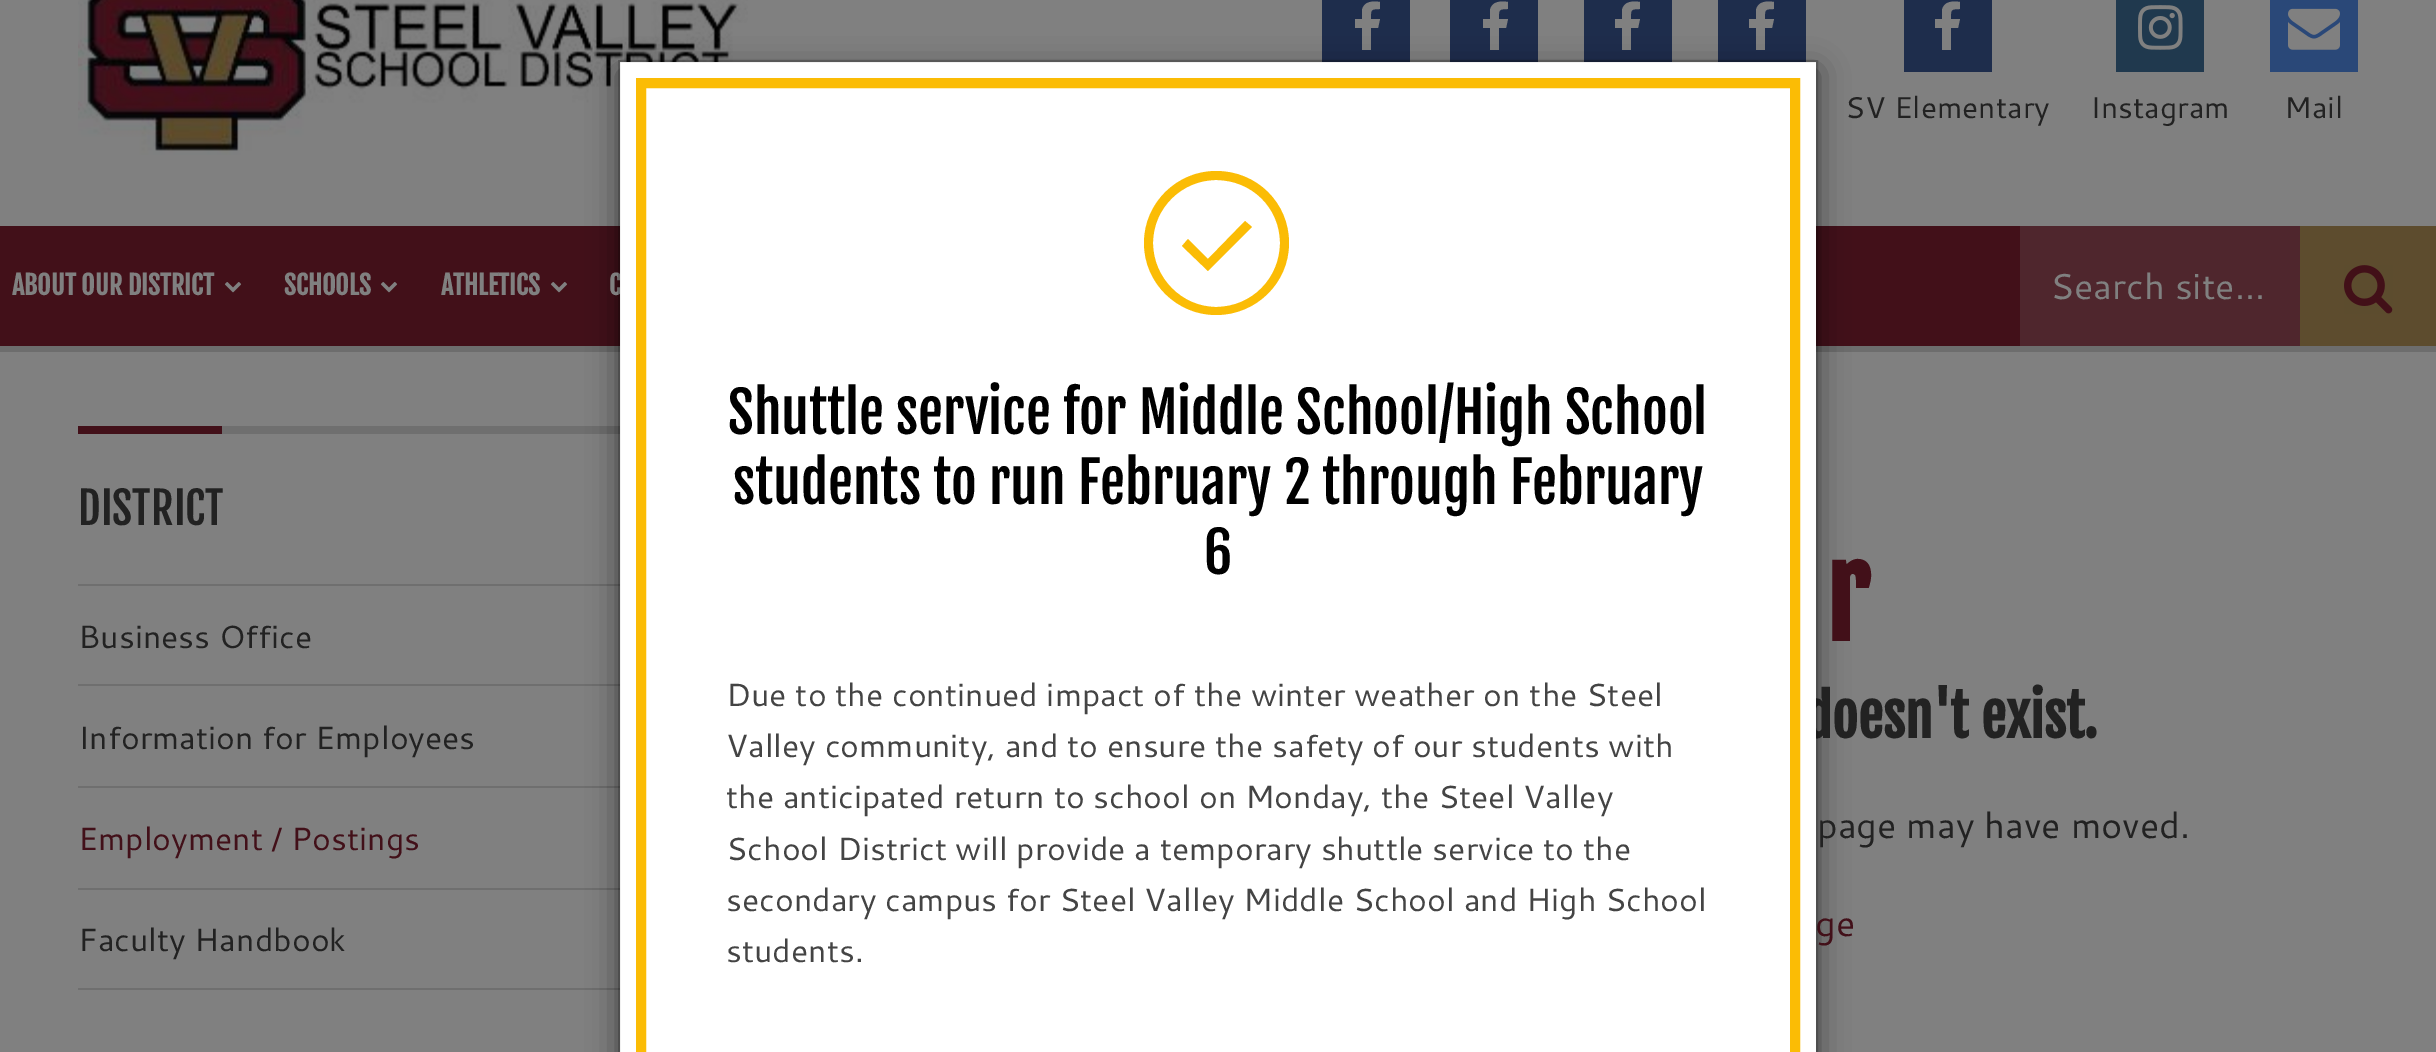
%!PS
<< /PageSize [2436 1052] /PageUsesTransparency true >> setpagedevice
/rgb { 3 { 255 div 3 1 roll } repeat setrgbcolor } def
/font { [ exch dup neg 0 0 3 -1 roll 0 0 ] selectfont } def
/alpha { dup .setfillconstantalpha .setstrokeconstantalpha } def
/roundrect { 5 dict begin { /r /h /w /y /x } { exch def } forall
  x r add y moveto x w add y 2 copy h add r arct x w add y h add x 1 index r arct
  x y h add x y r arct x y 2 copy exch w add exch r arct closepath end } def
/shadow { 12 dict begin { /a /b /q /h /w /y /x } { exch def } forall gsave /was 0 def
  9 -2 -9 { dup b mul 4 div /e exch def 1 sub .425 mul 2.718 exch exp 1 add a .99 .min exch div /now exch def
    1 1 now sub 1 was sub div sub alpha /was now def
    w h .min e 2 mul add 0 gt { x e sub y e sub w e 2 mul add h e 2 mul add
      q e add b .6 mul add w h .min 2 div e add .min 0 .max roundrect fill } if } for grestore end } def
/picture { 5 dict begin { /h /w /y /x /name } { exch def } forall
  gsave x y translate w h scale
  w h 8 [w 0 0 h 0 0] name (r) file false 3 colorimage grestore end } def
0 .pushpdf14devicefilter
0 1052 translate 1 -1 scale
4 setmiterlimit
128 128 128 rgb
0 0 2436 1052 rectfill
(img/1.rgb) 78 0 670 155 picture
30 45 76 rgb
1322 0 88 62 rectfill
128 128 128 rgb
1380 2 moveto 1380 9 lineto 1370 9 1371 10 1371 19 curveto 1380 19 lineto 1378 28 lineto 1371 28 lineto 1371 50 lineto 1362 50 lineto 1362 28 lineto 1355 28 lineto 1355 19 lineto 1362 19 lineto 1362 10 lineto 1364 1 1373 1 1380 2 curveto closepath fill
30 45 76 rgb
1450 0 88 62 rectfill
128 128 128 rgb
1508 2 moveto 1508 9 lineto 1498 9 1499 10 1499 19 curveto 1508 19 lineto 1506 28 lineto 1499 28 lineto 1499 50 lineto 1490 50 lineto 1490 28 lineto 1483 28 lineto 1483 19 lineto 1490 19 lineto 1490 10 lineto 1492 1 1501 1 1508 2 curveto closepath fill
30 45 76 rgb
1584 0 88 62 rectfill
128 128 128 rgb
1640 2 moveto 1640 9 lineto 1630 9 1631 10 1631 19 curveto 1640 19 lineto 1638 28 lineto 1631 28 lineto 1631 50 lineto 1622 50 lineto 1622 28 lineto 1615 28 lineto 1615 19 lineto 1622 19 lineto 1622 10 lineto 1624 1 1633 1 1640 2 curveto closepath fill
30 45 76 rgb
1718 0 88 62 rectfill
128 128 128 rgb
1774 2 moveto 1774 9 lineto 1764 9 1765 10 1765 19 curveto 1774 19 lineto 1772 28 lineto 1765 28 lineto 1765 50 lineto 1756 50 lineto 1756 28 lineto 1749 28 lineto 1749 19 lineto 1756 19 lineto 1756 10 lineto 1758 1 1767 1 1774 2 curveto closepath fill
30 45 76 rgb
1904 0 88 72 rectfill
128 128 128 rgb
1960 2 moveto 1960 9 lineto 1950 9 1951 10 1951 19 curveto 1960 19 lineto 1958 28 lineto 1951 28 lineto 1951 50 lineto 1942 50 lineto 1942 28 lineto 1935 28 lineto 1935 19 lineto 1942 19 lineto 1942 10 lineto 1944 1 1953 1 1960 2 curveto closepath fill
32 57 78 rgb
2116 0 88 72 rectfill
(img/2.rgb) 2138 5 45 45 picture
42 72 120 rgb
2270 0 88 72 rectfill
(img/3.rgb) 2288 8 52 42 picture
109 109 109 rgb
0 346 2436 6 rectfill
66 16 25 rgb
0 226 2020 120 rectfill
(img/4.rgb) 224 282 18 11 picture
(img/4.rgb) 380 282 18 11 picture
(img/4.rgb) 550 282 18 11 picture
79 38 45 rgb
2020 226 280 120 rectfill
93 76 46 rgb
2300 226 136 120 rectfill
(img/5.rgb) 2344 265 49 49 picture
[
  [222 426 398 8 111 111 111]
  [78 584 542 2 111 111 111]
  [78 684 542 2 111 111 111]
  [78 786 542 2 111 111 111]
  [78 888 542 2 111 111 111]
  [78 988 542 2 111 111 111]
] { aload pop rgb rectfill } forall
0 0 0 rgb
618 70 1200 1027 0 15 0.5 shadow
66 16 25 rgb
78 426 144 8 rectfill
/Cantarell-Regular 30 font
34 34 34 rgb
[
  [(SV Elementary) 1845 118]
  [(Instagram) 2090 118]
  [(Mail) 2284 118]
] { aload pop moveto show } forall
/FjallaOne-Bold 26 font
128 128 128 rgb
[
  [(ABOUT OUR DISTRICT) 12 295]
  [(SCHOOLS) 284 295]
  [(ATHLETICS) 441 295]
  [(C) 609 295]
] { aload pop moveto show } forall
/Cantarell-Regular 36 font
2050 299 moveto (Search site...) show
/FjallaOne-Regular 44 font
34 34 34 rgb
78 525 moveto (DISTRICT) show
/Cantarell-Regular 32 font
78 648 moveto (Business Office) show
78 749 moveto (Information for Employees) show
66 16 25 rgb
78 850 moveto (Employment / Postings) show
34 34 34 rgb
78 951 moveto (Faculty Handbook) show
/FjallaOne-Bold 116 font
66 16 25 rgb
1825 641 moveto (r) show
/FjallaOne-Bold 56 font
34 34 34 rgb
1805 738 moveto (doesn't exist.) show
255 255 255 rgb
620 62 1196 990 rectfill
/Cantarell-Regular 36 font
34 34 34 rgb
1817 838 moveto (page may have moved.) show
66 16 25 rgb
1815 936 moveto (ge) show
0.2 alpha
0 0 0 rgb
2 setlinewidth
619 61 1198 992 rectstroke
1 alpha
251 188 5 rgb
10 setlinewidth
641 83 1154 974 rectstroke
/Cantarell-Regular 32 font
68 68 68 rgb
[
  [(students.) 726 962]
  [(secondary campus for Steel Valley Middle School and High School) 726 911]
  [(School District will provide a temporary shuttle service to the) 726 860]
  [(the anticipated return to school on Monday, the Steel Valley) 726 808]
  [(Valley community, and to ensure the safety of our students with) 726 757]
  [(Due to the continued impact of the winter weather on the Steel) 726 706]
] { aload pop moveto show } forall
/FjallaOne-Regular 56 font
0 0 0 rgb
[
  [(6) 1204 574]
  [(students to run February 2 through February) 733 504]
  [(Shuttle service for Middle School/High School) 728 434]
] { aload pop moveto show } forall
251 188 5 rgb
1216 171 moveto 1177 171 1144 203 1144 243 curveto 1144 283 1177 315 1216 315 curveto 1256 315 1289 283 1289 243 curveto 1289 203 1257 171 1216 171 curveto closepath 1216 307 moveto 1182 307 1153 278 1153 243 curveto 1153 208 1182 180 1216 180 curveto 1252 180 1280 208 1280 243 curveto 1280 278 1252 307 1216 307 curveto closepath fill
1208 259 moveto 1188 239 lineto 1182 246 lineto 1208 271 lineto 1252 227 lineto 1245 221 lineto closepath fill
.poppdf14devicefilter showpage
